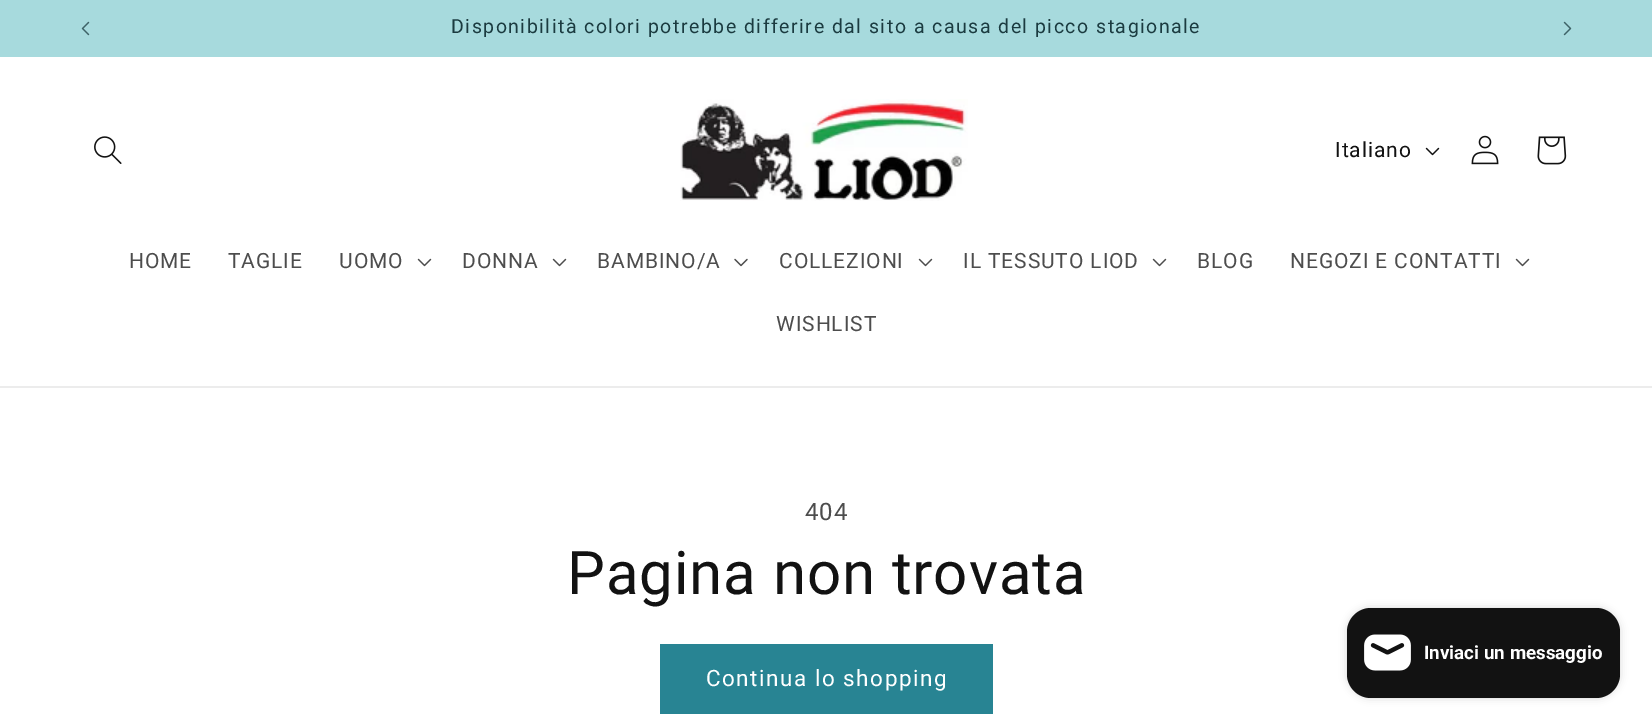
%!PS
<< /PageSize [1652 728] /PageUsesTransparency true >> setpagedevice
/rgb { 3 { 255 div 3 1 roll } repeat setrgbcolor } def
/font { [ exch dup neg 0 0 3 -1 roll 0 0 ] selectfont } def
/alpha { dup .setfillconstantalpha .setstrokeconstantalpha } def
/roundrect { 5 dict begin { /r /h /w /y /x } { exch def } forall
  x r add y moveto x w add y 2 copy h add r arct x w add y h add x 1 index r arct
  x y h add x y r arct x y 2 copy exch w add exch r arct closepath end } def
/shadow { 12 dict begin { /a /b /q /h /w /y /x } { exch def } forall gsave /was 0 def
  9 -2 -9 { dup b mul 4 div /e exch def 1 sub .425 mul 2.718 exch exp 1 add a .99 .min exch div /now exch def
    1 1 now sub 1 was sub div sub alpha /was now def
    w h .min e 2 mul add 0 gt { x e sub y e sub w e 2 mul add h e 2 mul add
      q e add b .6 mul add w h .min 2 div e add .min 0 .max roundrect fill } if } for grestore end } def
/picture { 5 dict begin { /h /w /y /x /name } { exch def } forall
  gsave x y translate w h scale
  w h 8 [w 0 0 h 0 0] name (r) file false 3 colorimage grestore end } def
0 .pushpdf14devicefilter
0 728 translate 1 -1 scale
4 setmiterlimit
255 255 255 rgb
0 0 1652 728 rectfill
167 218 221 rgb
0 0 1652 57 rectfill
(img/1.rgb) 81 21 9 15 picture
(img/2.rgb) 1563 21 9 15 picture
236 236 236 rgb
0 386 1652 2 rectfill
(img/3.rgb) 94 136 28 28 picture
(img/4.rgb) 680 99 288 102 picture
(img/5.rgb) 1425 147 15 9 picture
(img/6.rgb) 1471 135 28 30 picture
(img/7.rgb) 1537 136 30 29 picture
(img/8.rgb) 417 258 15 9 picture
(img/8.rgb) 552 258 15 9 picture
(img/9.rgb) 734 258 14 9 picture
(img/8.rgb) 918 258 15 9 picture
(img/8.rgb) 1152 258 15 9 picture
(img/8.rgb) 1515 258 15 9 picture
40 132 147 rgb
660 644 333 70 rectfill
0 0 0 rgb
1347 608 273 90 24 4 0.15 shadow
18 18 18 rgb
1347 608 273 90 24 roundrect fill
(img/10.rgb) 1364 634 47 37 picture
/Roboto-Regular 19.5 font
27 59 64 rgb
451 33 moveto 1.5 0 (Disponibilità colori potrebbe differire dal sito a causa del picco stagionale) ashow
/Roboto-Regular 21 font
18 18 18 rgb
1335 157 moveto 0.9 0 (Italiano) ashow
77 77 77 rgb
129 268 moveto 0.9 0 (HOME) ashow
228 268 moveto 0.9 0 (TAGLIE) ashow
339 268 moveto 0.9 0 (UOMO) ashow
462 268 moveto 0.9 0 (DONNA) ashow
597 268 moveto 0.9 0 (BAMBINO/A) ashow
779 268 moveto 0.9 0 (COLLEZIONI) ashow
963 268 moveto 0.9 0 (IL TESSUTO LIOD) ashow
1197 268 moveto 0.9 0 (BLOG) ashow
1290 268 moveto 0.9 0 (NEGOZI E CONTATTI) ashow
776 331 moveto 0.9 0 (WISHLIST) ashow
/Roboto-Regular 24 font
805 520 moveto 0.9 0 (404) ashow
/Roboto-Regular 60 font
18 18 18 rgb
567 594 moveto 0.9 0 (Pagina non trovata) ashow
/Roboto-Regular 22.5 font
255 255 255 rgb
706 686 moveto 1.5 0 (Continua lo shopping) ashow
/Roboto-Bold 18.75 font
1424 659 moveto (Inviaci un messaggio) show
.poppdf14devicefilter showpage
